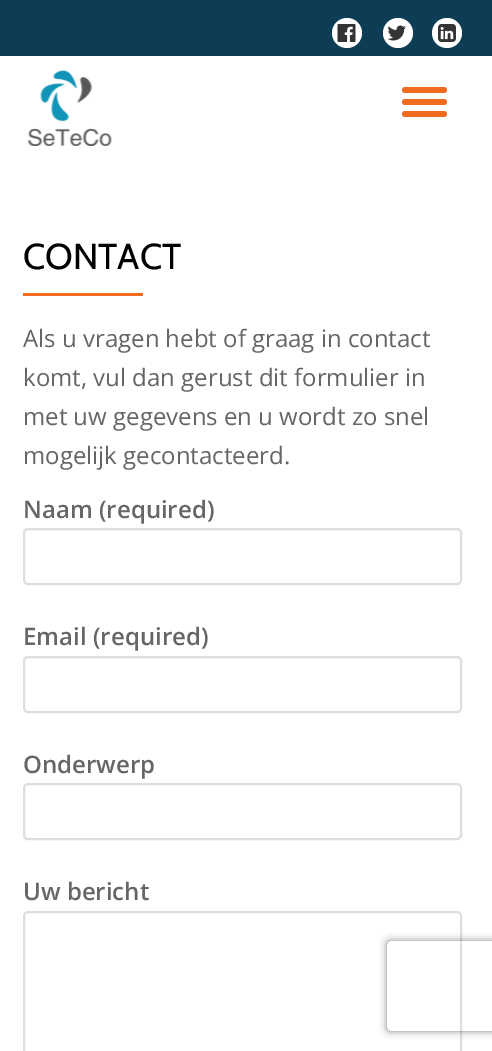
%!PS
<< /PageSize [492 1051] /PageUsesTransparency true >> setpagedevice
/rgb { 3 { 255 div 3 1 roll } repeat setrgbcolor } def
/font { [ exch dup neg 0 0 3 -1 roll 0 0 ] selectfont } def
/alpha { dup .setfillconstantalpha .setstrokeconstantalpha } def
/circle { newpath 0 360 arc closepath } def
/roundrect { 5 dict begin { /r /h /w /y /x } { exch def } forall
  x r add y moveto x w add y 2 copy h add r arct x w add y h add x 1 index r arct
  x y h add x y r arct x y 2 copy exch w add exch r arct closepath end } def
/shadow { 12 dict begin { /a /b /q /h /w /y /x } { exch def } forall gsave /was 0 def
  9 -2 -9 { dup b mul 4 div /e exch def 1 sub .425 mul 2.718 exch exp 1 add a .99 .min exch div /now exch def
    1 1 now sub 1 was sub div sub alpha /was now def
    w h .min e 2 mul add 0 gt { x e sub y e sub w e 2 mul add h e 2 mul add
      q e add b .6 mul add w h .min 2 div e add .min 0 .max roundrect fill } if } for grestore end } def
/picture { 5 dict begin { /h /w /y /x /name } { exch def } forall
  gsave x y translate w h scale
  w h 8 [w 0 0 h 0 0] name (r) file false 3 colorimage grestore end } def
0 .pushpdf14devicefilter
0 1051 translate 1 -1 scale
4 setmiterlimit
255 255 255 rgb
0 0 492 1051 rectfill
13 60 85 rgb
0 0 492 56 rectfill
255 255 255 rgb
347 33 15 circle fill
(img/1.rgb) 337 24 19 18 picture
398 33 15 circle fill
(img/2.rgb) 387 25 19 16 picture
447 33 15 circle fill
(img/3.rgb) 438 24 18 18 picture
(img/4.rgb) 27 70 85 76 picture
241 108 32 rgb
402 87 45 6 3 roundrect fill
402 99 45 6 3 roundrect fill
402 111 45 6 3 roundrect fill
23 293 120 3 rectfill
222 222 222 rgb
2 setlinewidth
24 529 437 55 4 roundrect stroke
24 657 437 55 4 roundrect stroke
24 784 437 55 4 roundrect stroke
24 912 437 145 4 roundrect stroke
gsave
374 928 moveto 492 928 lineto 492 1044 lineto 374 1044 lineto closepath 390 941 moveto 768 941 lineto 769.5 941 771 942.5 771 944 curveto 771 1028 lineto 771 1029.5 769.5 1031 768 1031 curveto 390 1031 lineto 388.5 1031 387 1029.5 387 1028 curveto 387 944 lineto 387 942.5 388.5 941 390 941 curveto closepath eoclip newpath
128 128 128 rgb
387 941 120 90 3 4 1 shadow
grestore
/Cabin-Regular 36 font
0 0 0 rgb
23 269 moveto (CONTACT) show
/OpenSans-Regular 24 font
102 102 102 rgb
[
  [(Als u vragen hebt of graag in contact) 23 347]
  [(komt, vul dan gerust dit formulier in) 23 386]
  [(met uw gegevens en u wordt zo snel) 23 425]
  [(mogelijk gecontacteerd.) 23 464]
] { aload pop moveto show } forall
/OpenSans-SemiBold 24 font
[
  [(Naam \(required\)) 23 518]
  [(Email \(required\)) 23 645]
  [(Onderwerp) 23 773]
  [(Uw bericht) 23 900]
] { aload pop moveto show } forall
.poppdf14devicefilter showpage
